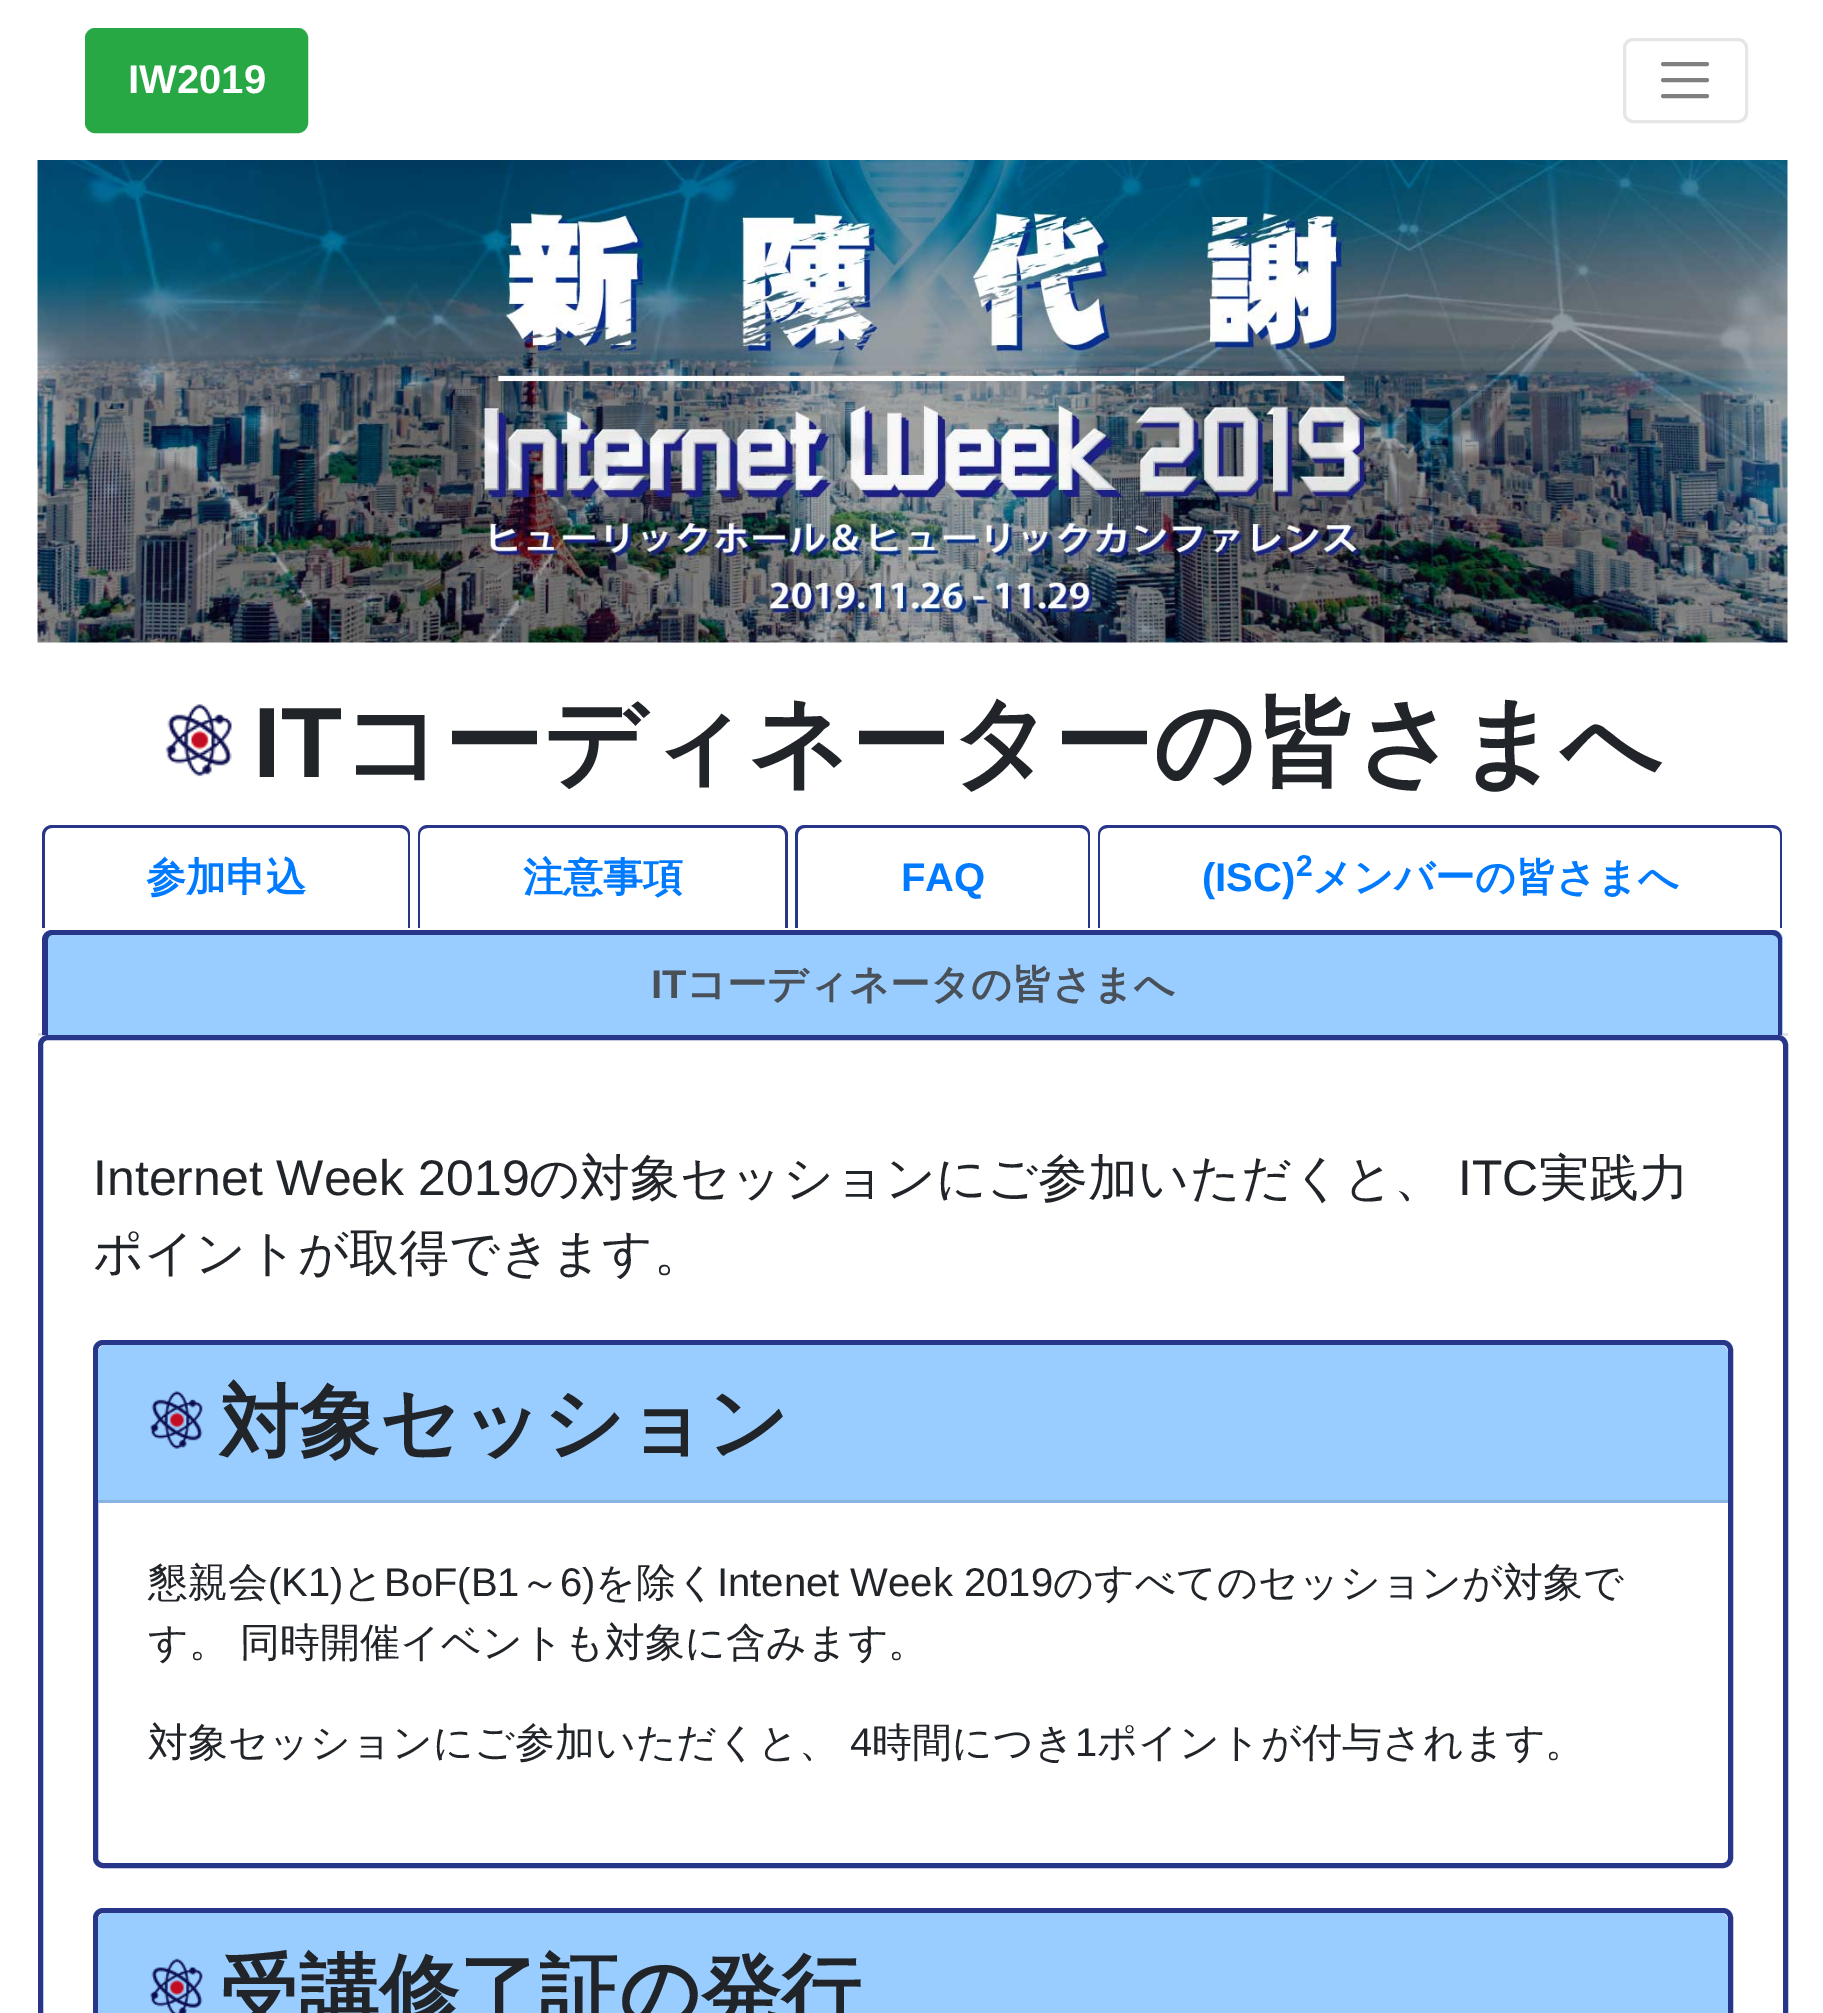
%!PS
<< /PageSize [1823 2013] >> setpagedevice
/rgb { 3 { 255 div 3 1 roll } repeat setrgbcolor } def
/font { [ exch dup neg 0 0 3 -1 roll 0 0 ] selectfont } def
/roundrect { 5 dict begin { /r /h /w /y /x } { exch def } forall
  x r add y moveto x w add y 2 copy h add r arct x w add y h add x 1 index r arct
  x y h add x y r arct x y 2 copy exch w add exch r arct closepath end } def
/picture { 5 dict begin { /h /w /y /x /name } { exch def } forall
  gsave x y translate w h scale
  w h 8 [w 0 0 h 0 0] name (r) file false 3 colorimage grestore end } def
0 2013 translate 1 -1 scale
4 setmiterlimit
255 255 255 rgb
0 0 1823 2013 rectfill
40 167 69 rgb
86.5 29.5 220 102 8.5 roundrect gsave fill grestore
3 setlinewidth
stroke
230 230 230 rgb
1624.5 39.5 122 82 8.5 roundrect stroke
128 128 128 rgb
4 setlinewidth
1 setlinecap
1663 64 moveto 1707 64 lineto 1663 80 moveto 1707 80 lineto 1663 96 moveto 1707 96 lineto stroke
(img/1.rgb) 37 160 1751 483 picture
(img/2.rgb) 165 704 67 73 picture
222 226 230 rgb
38 1033 1750 3 rectfill
40 54 138 rgb
52 825 moveto 400 825 lineto 406 825 410 829 410 835 curveto 410 928 lineto 42 928 lineto 42 835 lineto 42 829 47 825 52 825 curveto closepath 52 828 moveto 400 828 lineto 404 828 408 831 408 835 curveto 408 928 lineto 45 928 lineto 45 835 lineto 45 831 48 828 52 828 curveto closepath eofill
428 825 moveto 778 825 lineto 783 825 788 829 788 835 curveto 788 928 lineto 418 928 lineto 418 835 lineto 418 829 422 825 428 825 curveto closepath 428 828 moveto 778 828 lineto 782 828 785 831 785 835 curveto 785 928 lineto 420 928 lineto 420 835 lineto 420 831 423 828 428 828 curveto closepath eofill
805 825 moveto 1080 825 lineto 1086 825 1090 829 1090 835 curveto 1090 928 lineto 795 928 lineto 795 835 lineto 795 829 799 825 805 825 curveto closepath 805 828 moveto 1080 828 lineto 1084 828 1088 831 1088 835 curveto 1088 928 lineto 798 928 lineto 798 835 lineto 798 831 801 828 805 828 curveto closepath eofill
1108 825 moveto 1772 825 lineto 1778 825 1782 829 1782 835 curveto 1782 928 lineto 1098 928 lineto 1098 835 lineto 1098 829 1102 825 1108 825 curveto closepath 1108 828 moveto 1772 828 lineto 1777 828 1780 831 1780 835 curveto 1780 928 lineto 1100 928 lineto 1100 835 lineto 1100 831 1103 828 1108 828 curveto closepath eofill
153 204 255 rgb
53 930 moveto 1773 930 lineto 1778.5 930 1783 934.5 1783 940 curveto 1783 1035 lineto 43 1035 lineto 43 940 lineto 43 934.5 47.5 930 53 930 curveto closepath fill
40 54 138 rgb
52 930 moveto 1772 930 lineto 1778 930 1782 934 1782 940 curveto 1782 1035 lineto 42 1035 lineto 42 940 lineto 42 934 47 930 52 930 curveto closepath 52 935 moveto 1772 935 lineto 1775 935 1778 937 1778 940 curveto 1778 1035 lineto 48 1035 lineto 48 940 lineto 48 937 50 935 52 935 curveto closepath eofill
255 255 255 rgb
40.5 1037.5 1745 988 7.5 roundrect gsave fill grestore
40 54 138 rgb
5 setlinewidth
0 setlinecap
stroke
95.5 1342.5 1635 523 7.5 roundrect stroke
153 204 255 rgb
106 1345 moveto 1720 1345 lineto 1724.5 1345 1728 1348.5 1728 1353 curveto 1728 1503 lineto 98 1503 lineto 98 1353 lineto 98 1348.5 101.5 1345 106 1345 curveto closepath fill
134 179 223 rgb
98 1500 1630 3 rectfill
(img/3.rgb) 150 1391 53 58 picture
40 54 138 rgb
95.5 1910.5 1635 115 7.5 roundrect stroke
153 204 255 rgb
106 1913 moveto 1720 1913 lineto 1724.5 1913 1728 1916.5 1728 1921 curveto 1728 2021 lineto 98 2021 lineto 98 1921 lineto 98 1916.5 101.5 1913 106 1913 curveto closepath fill
(img/4.rgb) 150 1958 53 55 picture
/LiberationSans-Bold 40 font
255 255 255 rgb
128 93 moveto (IW2019) show
/LiberationSans-Bold 100 font
33 37 41 rgb
253 777 moveto (IT) show
/WenQuanYiZenHei-Bold 100 font
341 777 moveto (コーディネーターの皆さまへ) show
/WenQuanYiZenHei-Bold 40 font
0 123 255 rgb
146 891 moveto (参加申込) show
523 891 moveto (注意事項) show
/LiberationSans-Bold 40 font
901 891 moveto (FAQ) show
1202 891 moveto (\(ISC\)) show
/LiberationSans-Bold 30 font
1296 876 moveto (2) show
/WenQuanYiZenHei-Bold 40 font
1312 891 moveto (メンバーの皆さまへ) show
/LiberationSans-Bold 40 font
73 80 87 rgb
651 998 moveto (IT) show
/WenQuanYiZenHei-Bold 40 font
686 998 moveto (コーディネータの皆さまへ) show
/LiberationSans-Regular 50 font
33 37 41 rgb
93 1195 moveto (Internet Week 2019) show
/WenQuanYiZenHei-Medium 50 font
529 1195 moveto (の対象セッションにご参加いただくと、) show
/LiberationSans-Regular 50 font
1458 1195 moveto (ITC) show
/WenQuanYiZenHei-Medium 50 font
1539 1195 moveto (実践力) show
93 1270 moveto (ポイントが取得できます。) show
/WenQuanYiZenHei-Bold 80 font
219 1450 moveto (対象セッション) show
/WenQuanYiZenHei-Medium 40 font
148 1596 moveto (懇親会) show
/LiberationSans-Regular 40 font
268 1596 moveto (\(K1\)) show
/WenQuanYiZenHei-Medium 40 font
343 1596 moveto (と) show
/LiberationSans-Regular 40 font
384 1596 moveto (BoF\(B1) show
/WenQuanYiZenHei-Medium 40 font
520 1596 moveto (～) show
/LiberationSans-Regular 40 font
560 1596 moveto (6\)) show
/WenQuanYiZenHei-Medium 40 font
595 1596 moveto (を除く) show
/LiberationSans-Regular 40 font
717 1596 moveto (Intenet Week 2019) show
/WenQuanYiZenHei-Medium 40 font
[
  [(のすべてのセッションが対象で) 1053 1596]
  [(す。) 148 1656]
  [(同時開催イベントも対象に含みます。) 240 1656]
  [(対象セッションにご参加いただくと、) 148 1756]
] { aload pop moveto show } forall
/LiberationSans-Regular 40 font
850 1756 moveto (4) show
/WenQuanYiZenHei-Medium 40 font
872 1756 moveto (時間につき) show
/LiberationSans-Regular 40 font
1075 1756 moveto (1) show
/WenQuanYiZenHei-Medium 40 font
1097 1756 moveto (ポイントが付与されます。) show
/WenQuanYiZenHei-Bold 80 font
219 2019 moveto (受講修了証の発行) show
showpage
